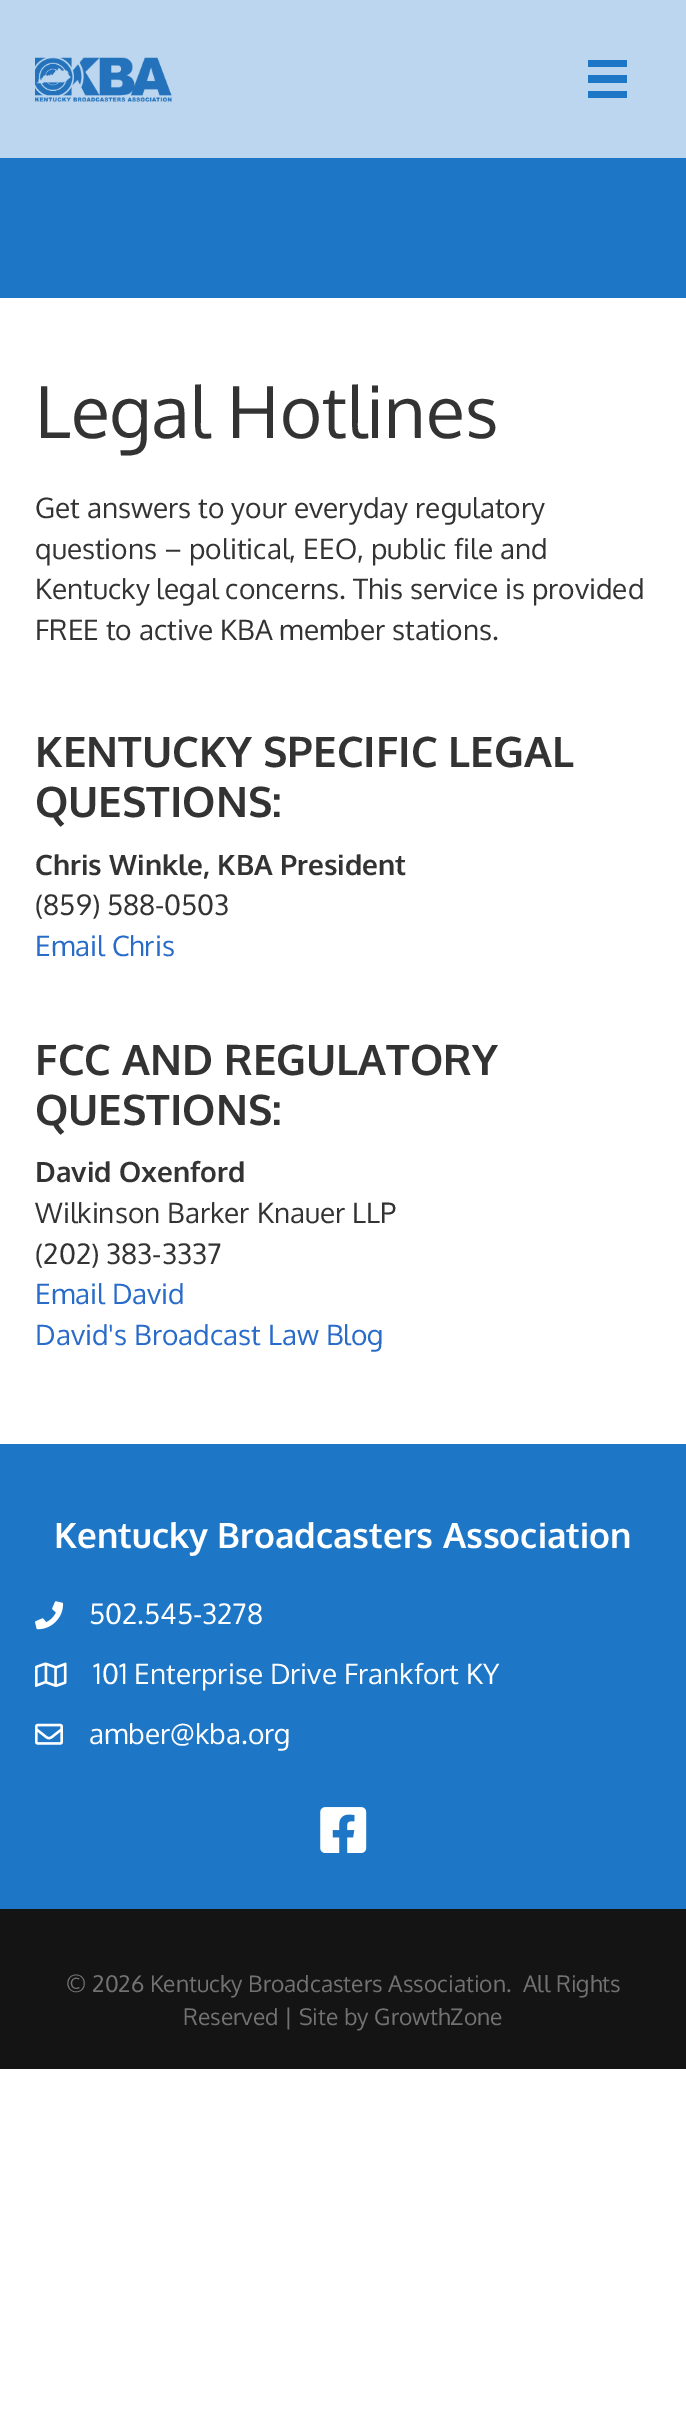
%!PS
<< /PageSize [686 2418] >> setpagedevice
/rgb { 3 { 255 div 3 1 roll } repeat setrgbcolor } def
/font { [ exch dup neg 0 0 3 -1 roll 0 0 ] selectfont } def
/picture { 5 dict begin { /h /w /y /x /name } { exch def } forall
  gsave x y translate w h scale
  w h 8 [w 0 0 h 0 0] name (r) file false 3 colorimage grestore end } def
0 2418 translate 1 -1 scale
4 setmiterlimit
255 255 255 rgb
0 0 686 2418 rectfill
187 214 238 rgb
0 0 686 158 rectfill
(img/1.rgb) 35 57 137 45 picture
[
  [588 60 39 7 29 119 198]
  [588 75 39 8 29 119 198]
  [588 91 39 7 29 119 198]
  [0 158 686 140 29 119 198]
  [0 1444 686 465 29 119 198]
] { aload pop rgb rectfill } forall
(img/2.rgb) 35 1601 29 29 picture
(img/3.rgb) 35 1662 32 25 picture
(img/4.rgb) 35 1723 28 22 picture
(img/5.rgb) 320 1807 47 46 picture
20 20 20 rgb
0 1909 686 160 rectfill
/Oxygen-Regular 71.75 font
51 51 51 rgb
35 438 moveto (Legal Hotlines) show
/Oxygen-Regular 28 font
[
  [(Get answers to your everyday regulatory) 35 518]
  [(questions – political, EEO, public file and) 35 559]
  [(Kentucky legal concerns. This service is provided) 35 599]
  [(FREE to active KBA member stations.) 35 640]
] { aload pop moveto show } forall
/Oxygen-Bold 42 font
35 767 moveto (KENTUCKY SPECIFIC LEGAL) show
35 817 moveto (QUESTIONS:) show
/Oxygen-Bold 28 font
35 875 moveto (Chris Winkle, KBA President) show
/Oxygen-Regular 28 font
35 915 moveto (\(859\) 588-0503) show
41 107 201 rgb
35 956 moveto (Email Chris) show
/Oxygen-Bold 42 font
51 51 51 rgb
35 1075 moveto (FCC AND REGULATORY) show
35 1125 moveto (QUESTIONS:) show
/Oxygen-Bold 28 font
35 1182 moveto (David Oxenford) show
/Oxygen-Regular 28 font
35 1223 moveto (Wilkinson Barker Knauer LLP) show
35 1264 moveto (\(202\) 383-3337) show
41 107 201 rgb
35 1304 moveto (Email David) show
35 1345 moveto (David's Broadcast Law Blog) show
/Oxygen-Bold 35 font
255 255 255 rgb
54 1548 moveto (Kentucky Broadcasters Association) show
/Oxygen-Regular 28 font
[
  [(502.545-3278) 89 1624]
  [(101 Enterprise Drive Frankfort KY) 93 1684]
  [(amber@kba.org) 89 1744]
] { aload pop moveto show } forall
/Oxygen-Regular 22.75 font
114 114 114 rgb
[
  [(© 2026 Kentucky Broadcasters Association.) 66 1992]
  [(All Rights) 523 1992]
  [(Reserved | Site by GrowthZone) 183 2025]
] { aload pop moveto show } forall
showpage
